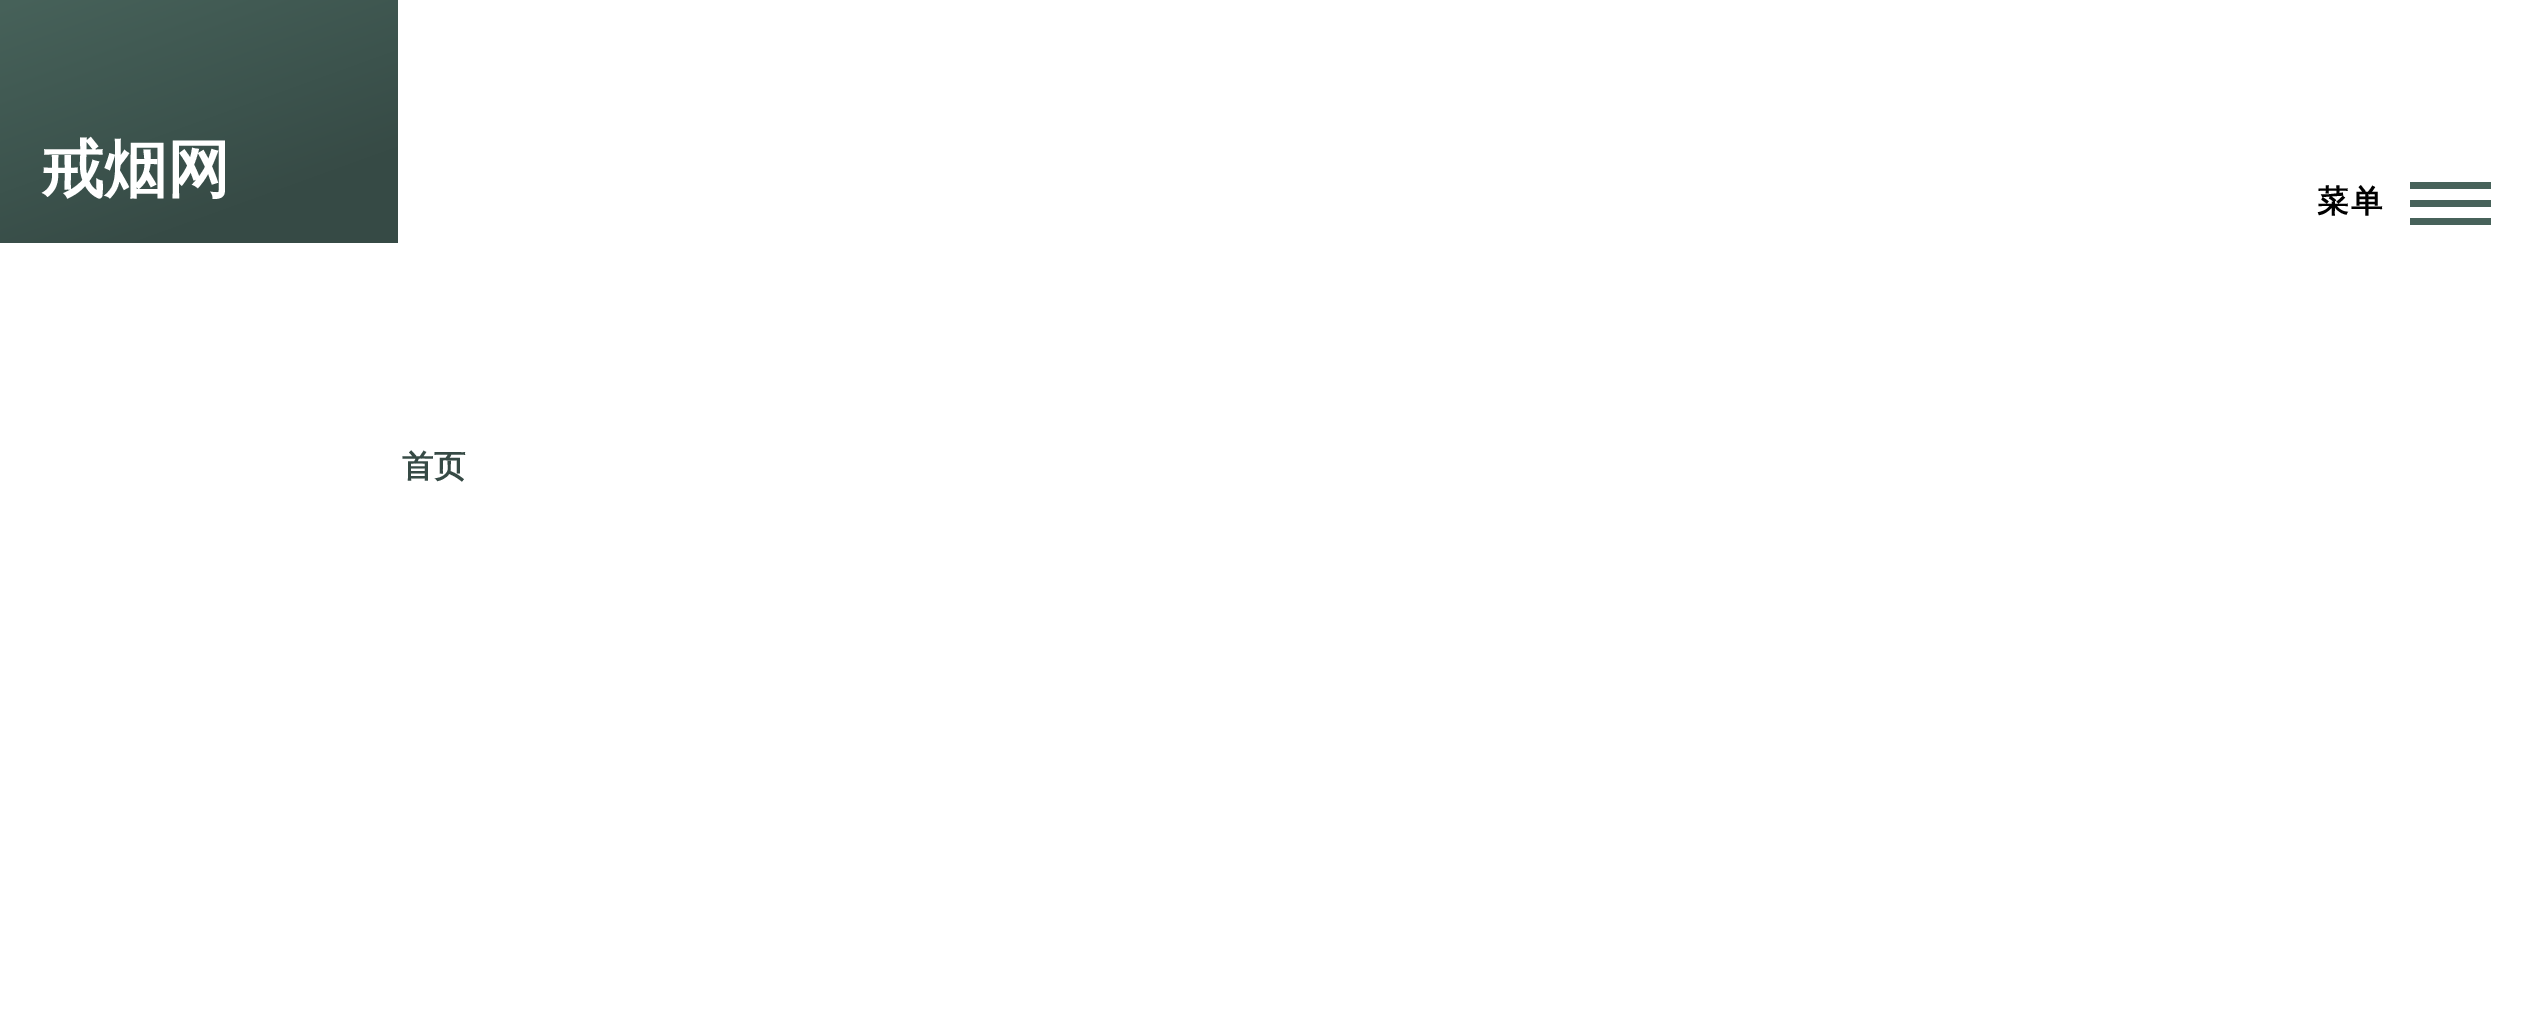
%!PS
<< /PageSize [2531 1025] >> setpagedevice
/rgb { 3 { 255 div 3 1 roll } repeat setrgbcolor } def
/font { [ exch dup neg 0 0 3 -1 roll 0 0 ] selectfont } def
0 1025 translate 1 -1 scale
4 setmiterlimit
255 255 255 rgb
0 0 2531 1025 rectfill
gsave 0 0 moveto 398 0 lineto 398 243 lineto 0 243 lineto closepath clip newpath
<< /ShadingType 2 /ColorSpace /DeviceRGB /Coords [137 -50 261 293] /Extend [true true] /Function << /FunctionType 3 /Domain [0 1] /Functions [<< /FunctionType 2 /Domain [0 1] /C0 [0.278 0.384 0.353] /C1 [0.212 0.29 0.271] /N 1 >> << /FunctionType 2 /Domain [0 1] /C0 [0.212 0.29 0.271] /C1 [0.212 0.29 0.271] /N 1 >>] /Bounds [0.79] /Encode [0 1 0 1] >> >> shfill grestore
[
  [2410 200 81 7 71 98 90]
  [2410 182 81 7 71 98 90]
  [2410 218 81 7 71 98 90]
] { aload pop rgb rectfill } forall
/WenQuanYiZenHei-Bold 63 font
255 255 255 rgb
41 191 moveto (戒烟网) show
/WenQuanYiZenHei-Bold 31.5 font
0 0 0 rgb
2317 212 moveto 2 0 (菜单) ashow
54 74 69 rgb
402 477 moveto (首页) show
showpage
